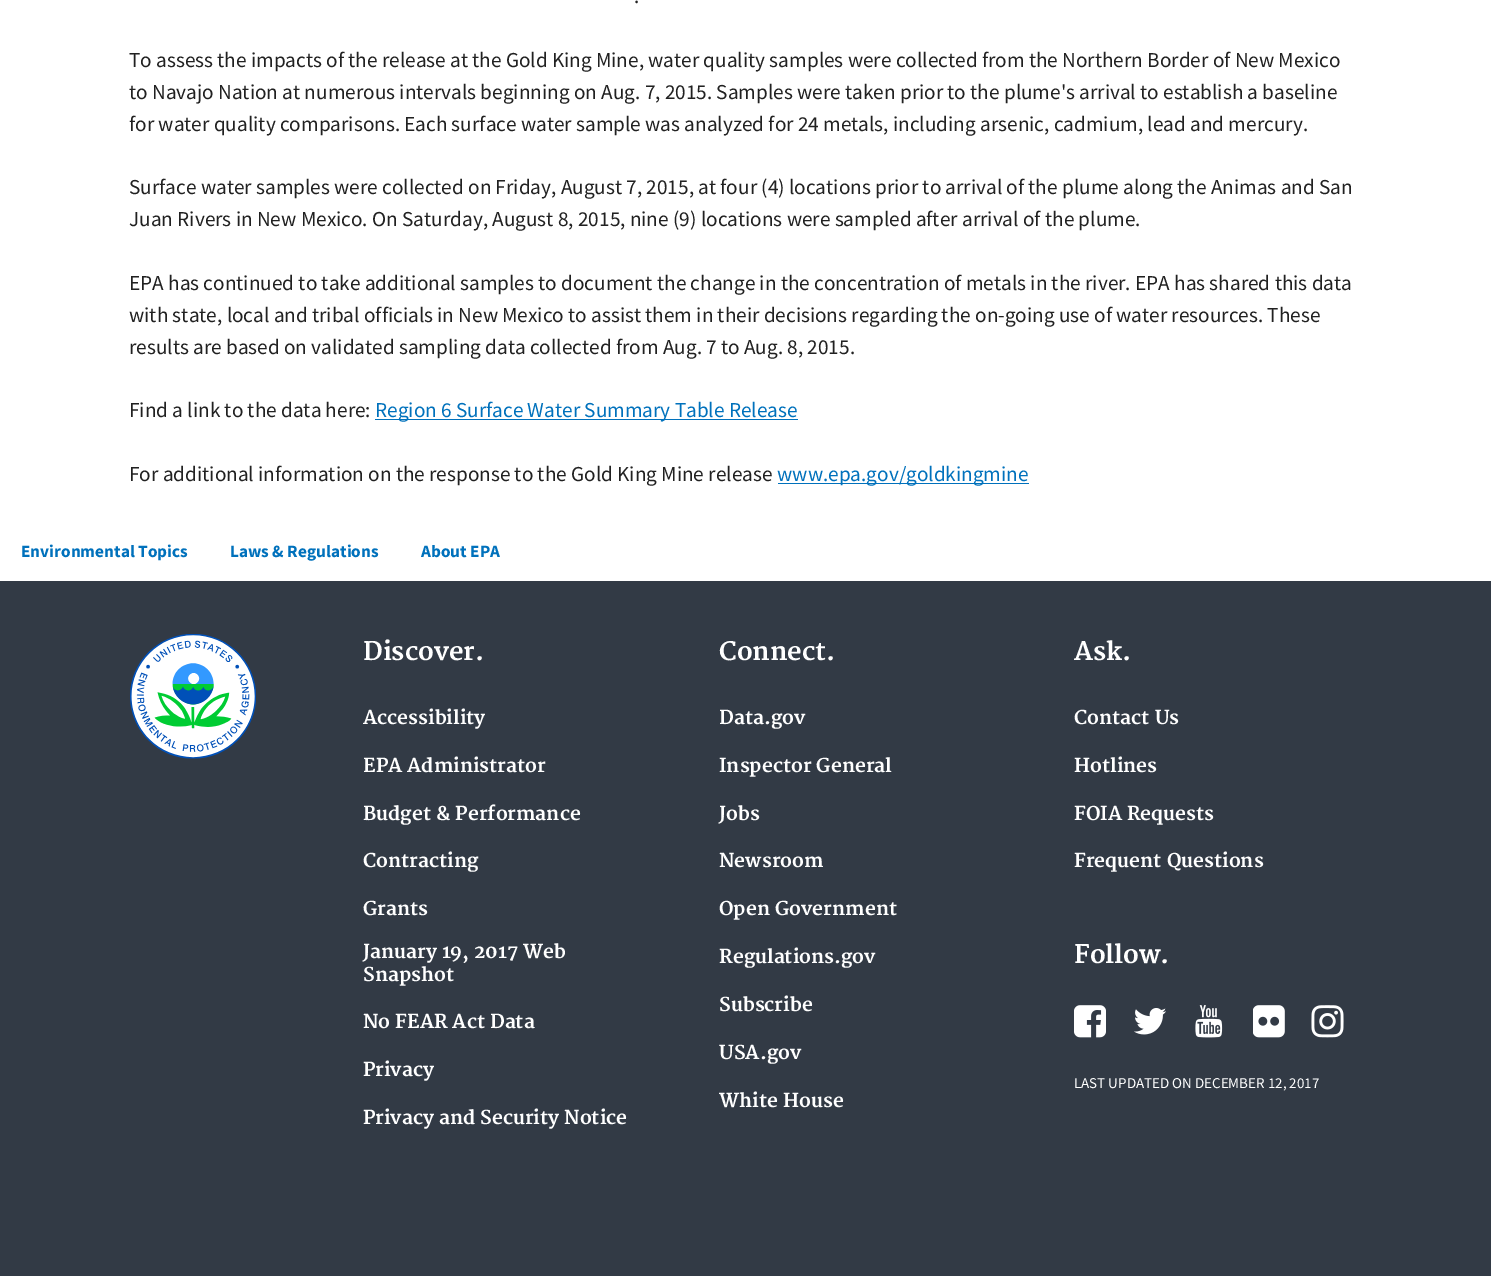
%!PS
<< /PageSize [1491 1276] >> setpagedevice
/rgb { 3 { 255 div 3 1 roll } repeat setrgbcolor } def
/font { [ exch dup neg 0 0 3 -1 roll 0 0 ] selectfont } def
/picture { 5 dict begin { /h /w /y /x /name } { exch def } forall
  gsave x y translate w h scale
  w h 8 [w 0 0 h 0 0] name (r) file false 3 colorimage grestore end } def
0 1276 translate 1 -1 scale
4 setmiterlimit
255 255 255 rgb
0 0 1491 1276 rectfill
[
  [375 419 423 1 0 113 188]
  [778 483 251 1 0 113 188]
  [0 581 1491 695 50 58 69]
] { aload pop rgb rectfill } forall
(img/1.rgb) 130 634 126 125 picture
(img/2.rgb) 1074 1005 32 33 picture
(img/3.rgb) 1134 1008 32 27 picture
(img/4.rgb) 1195 1005 28 33 picture
(img/5.rgb) 1253 1005 32 33 picture
(img/6.rgb) 1311 1005 33 33 picture
/SourceSansPro-Regular 21.25 font
33 33 33 rgb
[
  [(.) 634 3]
  [(To assess the impacts of the release at the Gold King Mine, water quality samples were collected from the Northern Border of New Mexico) 129 67]
  [(to Navajo Nation at numerous intervals beginning on Aug. 7, 2015. Samples were taken prior to the plume's arrival to establish a baseline) 129 99]
  [(for water quality comparisons. Each surface water sample was analyzed for 24 metals, including arsenic, cadmium, lead and mercury.) 129 131]
  [(Surface water samples were collected on Friday, August 7, 2015, at four \(4\) locations prior to arrival of the plume along the Animas and San) 129 194]
  [(Juan Rivers in New Mexico. On Saturday, August 8, 2015, nine \(9\) locations were sampled after arrival of the plume.) 129 226]
  [(EPA has continued to take additional samples to document the change in the concentration of metals in the river. EPA has shared this data) 129 290]
  [(with state, local and tribal officials in New Mexico to assist them in their decisions regarding the on-going use of water resources. These) 129 322]
  [(results are based on validated sampling data collected from Aug. 7 to Aug. 8, 2015.) 129 354]
  [(Find a link to the data here:) 129 417]
] { aload pop moveto show } forall
0 113 188 rgb
375 417 moveto (Region 6 Surface Water Summary Table Release) show
33 33 33 rgb
129 481 moveto (For additional information on the response to the Gold King Mine release) show
0 113 188 rgb
777 481 moveto (www.epa.gov/goldkingmine) show
/SourceSansPro-Bold 17.25 font
[
  [(Environmental Topics) 21 557]
  [(Laws & Regulations) 230 557]
  [(About EPA) 421 557]
] { aload pop moveto show } forall
/Merriweather-Bold 25 font
255 255 255 rgb
363 660 moveto (Discover.) show
/Merriweather-Bold 18.75 font
[
  [(Accessibility) 363 724]
  [(EPA Administrator) 363 772]
  [(Budget & Performance) 363 820]
  [(Contracting) 363 867]
  [(Grants) 363 915]
  [(January 19, 2017 Web) 363 958]
  [(Snapshot) 363 981]
  [(No FEAR Act Data) 363 1028]
  [(Privacy) 363 1076]
  [(Privacy and Security Notice) 363 1124]
] { aload pop moveto show } forall
/Merriweather-Bold 25 font
719 660 moveto (Connect.) show
/Merriweather-Bold 18.75 font
[
  [(Data.gov) 719 724]
  [(Inspector General) 719 772]
  [(Jobs) 719 820]
  [(Newsroom) 719 867]
  [(Open Government) 719 915]
  [(Regulations.gov) 719 963]
  [(Subscribe) 719 1011]
  [(USA.gov) 719 1059]
  [(White House) 719 1107]
] { aload pop moveto show } forall
/Merriweather-Bold 25 font
1074 660 moveto (Ask.) show
/Merriweather-Bold 18.75 font
[
  [(Contact Us) 1074 724]
  [(Hotlines) 1074 772]
  [(FOIA Requests) 1074 820]
  [(Frequent Questions) 1074 867]
] { aload pop moveto show } forall
/Merriweather-Bold 25 font
1074 963 moveto (Follow.) show
/SourceSansPro-Regular 15 font
1074 1088 moveto (LAST UPDATED ON DECEMBER 12, 2017) show
showpage
